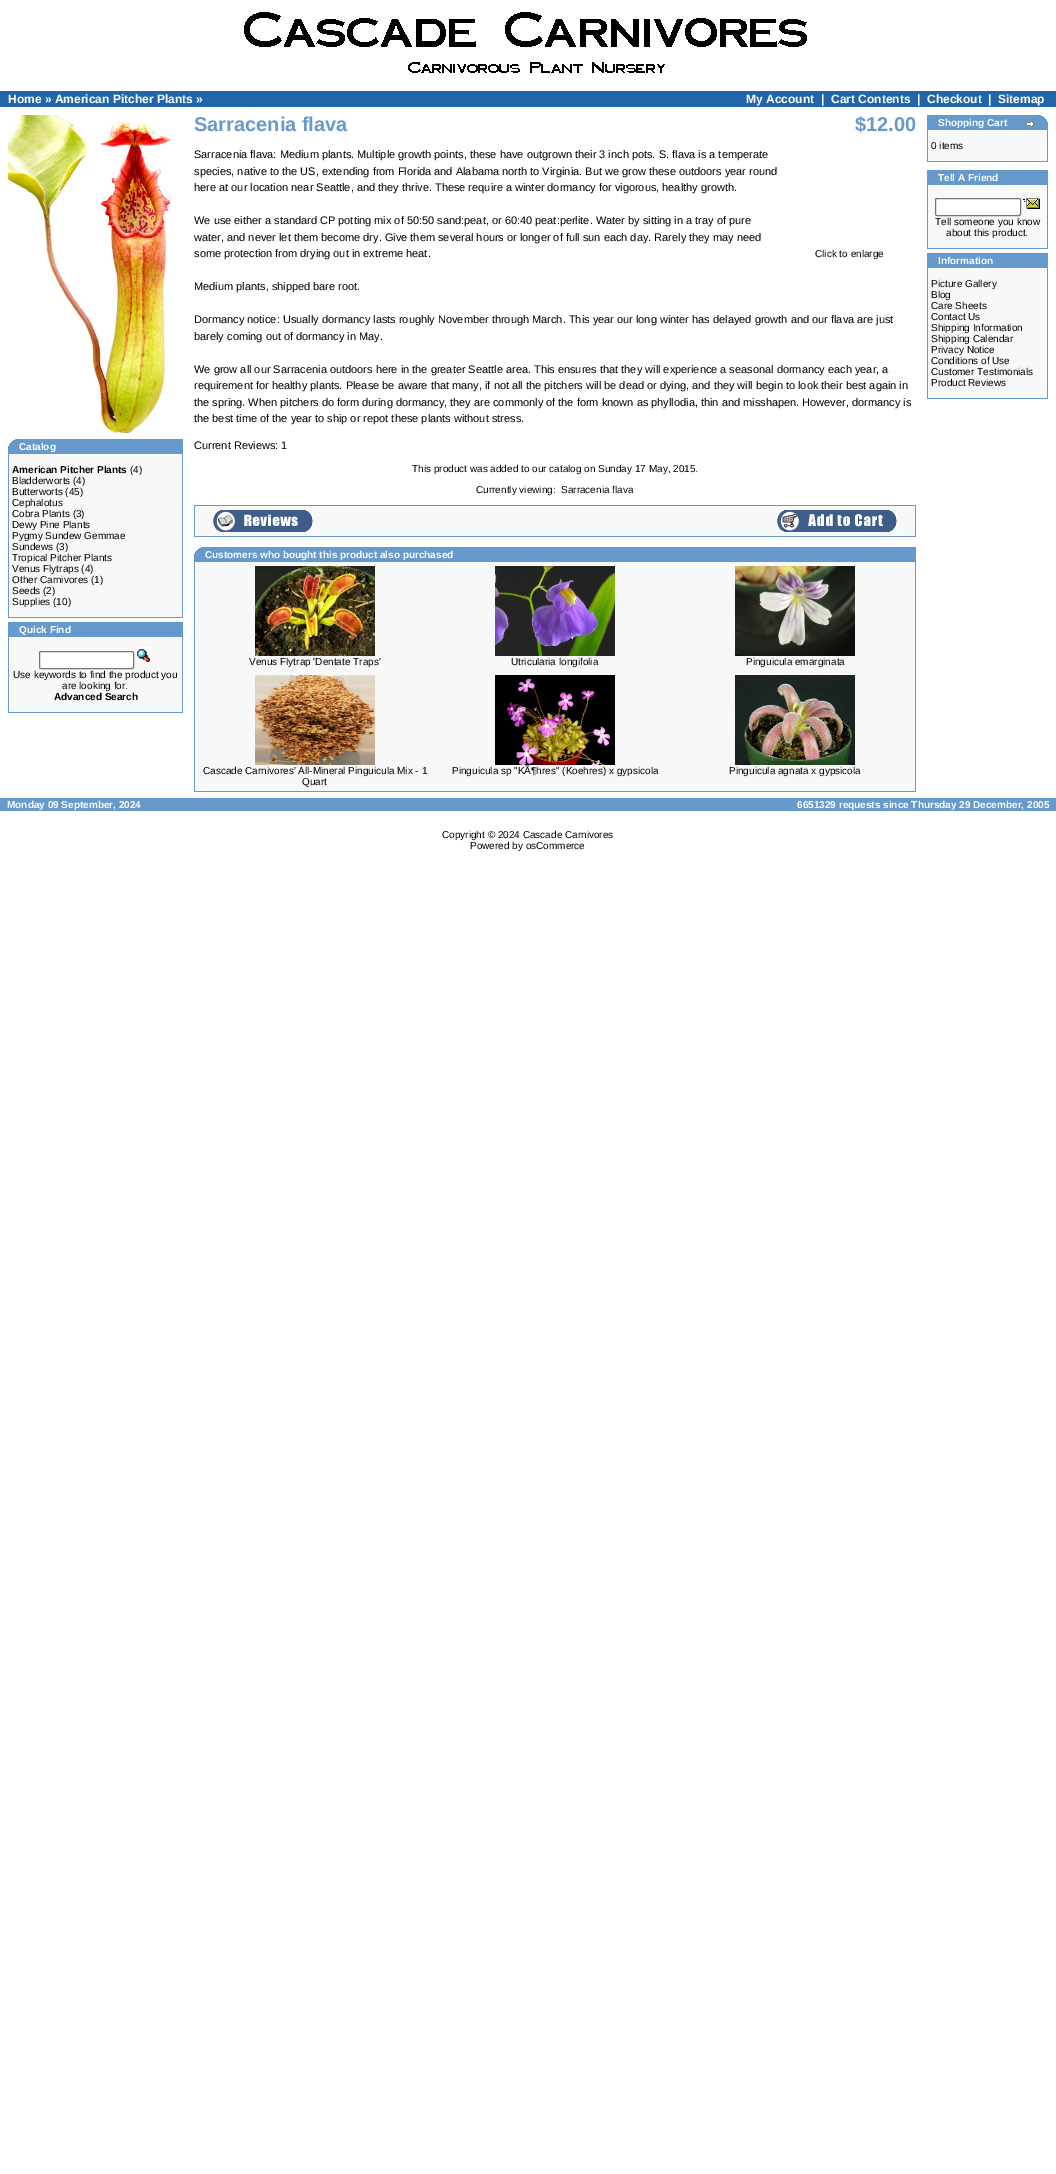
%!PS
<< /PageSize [1056 2174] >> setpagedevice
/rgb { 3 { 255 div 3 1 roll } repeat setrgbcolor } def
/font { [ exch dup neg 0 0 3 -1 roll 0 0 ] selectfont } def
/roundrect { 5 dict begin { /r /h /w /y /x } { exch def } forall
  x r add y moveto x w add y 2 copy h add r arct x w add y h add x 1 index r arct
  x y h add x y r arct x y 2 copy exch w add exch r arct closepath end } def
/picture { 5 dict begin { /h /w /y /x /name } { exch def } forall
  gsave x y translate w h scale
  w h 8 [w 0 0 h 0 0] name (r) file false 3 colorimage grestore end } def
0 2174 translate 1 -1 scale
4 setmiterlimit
255 255 255 rgb
0 0 1056 2174 rectfill
(img/1.rgb) 244 12 563 61 picture
[
  [0 91 1056 16 34 102 170]
  [194 505 722 32 102 153 204]
  [195 506 720 30 248 248 249]
] { aload pop rgb rectfill } forall
(img/2.rgb) 213 510 100 22 picture
(img/3.rgb) 777 510 120 22 picture
102 153 204 rgb
194 547 722 245 rectfill
(img/4.rgb) 194 547 10 10 picture
248 248 249 rgb
195 562 720 229 rectfill
(img/5.rgb) 255 566 120 90 picture
(img/6.rgb) 495 566 120 90 picture
(img/7.rgb) 735 566 120 90 picture
(img/8.rgb) 255 675 120 90 picture
(img/9.rgb) 495 675 120 90 picture
(img/10.rgb) 735 675 120 90 picture
102 153 204 rgb
927 115 121 47 rectfill
(img/11.rgb) 1026 121 9 6 picture
(img/12.rgb) 1038 115 10 10 picture
[
  [928 130 119 31 248 248 249]
  [927 170 121 79 102 153 204]
  [928 185 119 63 248 248 249]
] { aload pop rgb rectfill } forall
255 255 255 rgb
935.5 198.5 85 17 1.5 roundrect gsave fill grestore
118 118 118 rgb
stroke
(img/13.rgb) 1023 198 17 11 picture
102 153 204 rgb
927 253 121 146 rectfill
248 248 249 rgb
928 268 119 130 rectfill
(img/14.rgb) 8 115 163 319 picture
102 153 204 rgb
8 439 175 179 rectfill
(img/4.rgb) 8 439 10 10 picture
[
  [9 454 173 163 248 248 249]
  [8 622 175 91 102 153 204]
  [9 637 173 75 248 248 249]
] { aload pop rgb rectfill } forall
255 255 255 rgb
39.5 651.5 94 17 1.5 roundrect gsave fill grestore
118 118 118 rgb
stroke
(img/15.rgb) 136 647 16 17 picture
102 153 204 rgb
0 798 1056 13 rectfill
/LiberationSans-Bold 12 font
255 255 255 rgb
[
  [(Home » American Pitcher Plants ») 8 103]
  [(My Account) 746 103]
  [(|) 821 103]
  [(Cart Contents) 831 103]
  [(|) 917 103]
  [(Checkout) 927 103]
  [(|) 988 103]
  [(Sitemap) 998 103]
] { aload pop moveto show } forall
/LiberationSans-Bold 20 font
102 153 204 rgb
194 131 moveto (Sarracenia flava) show
855 131 moveto ($12.00) show
/LiberationSans-Regular 11 font
0 0 0 rgb
[
  [(Sarracenia flava: Medium plants. Multiple growth points, these have outgrown their 3 inch pots. S. flava is a temperate) 194 158]
  [(species, native to the US, extending from Florida and Alabama north to Virginia. But we grow these outdoors year round) 194 175]
  [(here at our location near Seattle, and they thrive. These require a winter dormancy for vigorous, healthy growth.) 194 191]
  [(We use either a standard CP potting mix of 50:50 sand:peat, or 60:40 peat:perlite. Water by sitting in a tray of pure) 194 224]
  [(water, and never let them become dry. Give them several hours or longer of full sun each day. Rarely they may need) 194 241]
  [(some protection from drying out in extreme heat.) 194 257]
  [(Medium plants, shipped bare root.) 194 290]
  [(Dormancy notice: Usually dormancy lasts roughly November through March. This year our long winter has delayed growth and our flava are just) 194 323]
  [(barely coming out of dormancy in May.) 194 340]
  [(We grow all our Sarracenia outdoors here in the greater Seattle area. This ensures that they will experience a seasonal dormancy each year, a) 194 373]
  [(requirement for healthy plants. Please be aware that many, if not all the pitchers will be dead or dying, and they will begin to look their best again in) 194 389]
  [(the spring. When pitchers do form during dormancy, they are commonly of the form known as phyllodia, thin and misshapen. However, dormancy is) 194 406]
  [(the best time of the year to ship or repot these plants without stress.) 194 422]
] { aload pop moveto show } forall
/LiberationSans-Regular 10 font
815 257 moveto (Click to enlarge) show
/LiberationSans-Regular 11 font
194 449 moveto (Current Reviews: 1) show
/LiberationSans-Regular 10 font
[
  [(This product was added to our catalog on Sunday 17 May, 2015.) 412 472]
  [(Currently viewing:) 476 493]
  [(Sarracenia flava) 561 493]
] { aload pop moveto show } forall
/LiberationSans-Bold 10 font
255 255 255 rgb
205 558 moveto (Customers who bought this product also purchased) show
/LiberationSans-Regular 10 font
0 0 0 rgb
[
  [(Venus Flytrap 'Dentate Traps') 249 665]
  [(Utricularia longifolia) 511 665]
  [(Pinguicula emarginata) 746 665]
  [(Cascade Carnivores' All-Mineral Pinguicula Mix - 1) 203 774]
  [(Quart) 302 785]
  [(Pinguicula sp "KÃ¶hres" \(Koehres\) x gypsicola) 452 774]
  [(Pinguicula agnata x gypsicola) 729 774]
] { aload pop moveto show } forall
/LiberationSans-Bold 10 font
255 255 255 rgb
938 126 moveto (Shopping Cart) show
/LiberationSans-Regular 10 font
0 0 0 rgb
931 149 moveto (0 items) show
/LiberationSans-Bold 10 font
255 255 255 rgb
938 181 moveto (Tell A Friend) show
/LiberationSans-Regular 10 font
0 0 0 rgb
935 225 moveto (Tell someone you know) show
946 236 moveto (about this product.) show
/LiberationSans-Bold 10 font
255 255 255 rgb
938 264 moveto (Information) show
/LiberationSans-Regular 10 font
0 0 0 rgb
[
  [(Picture Gallery) 931 287]
  [(Blog) 931 298]
  [(Care Sheets) 931 309]
  [(Contact Us) 931 320]
  [(Shipping Information) 931 331]
  [(Shipping Calendar) 931 342]
  [(Privacy Notice) 931 353]
  [(Conditions of Use) 931 364]
  [(Customer Testimonials) 931 375]
  [(Product Reviews) 931 386]
] { aload pop moveto show } forall
/LiberationSans-Bold 10 font
255 255 255 rgb
19 450 moveto (Catalog) show
0 0 0 rgb
12 473 moveto (American Pitcher Plants) show
/LiberationSans-Regular 10 font
[
  [(\(4\)) 130 473]
  [(Bladderworts \(4\)) 12 484]
  [(Butterworts \(45\)) 12 495]
  [(Cephalotus) 12 506]
  [(Cobra Plants \(3\)) 12 517]
  [(Dewy Pine Plants) 12 528]
  [(Pygmy Sundew Gemmae) 12 539]
  [(Sundews \(3\)) 12 550]
  [(Tropical Pitcher Plants) 12 561]
  [(Venus Flytraps \(4\)) 12 572]
  [(Other Carnivores \(1\)) 12 583]
  [(Seeds \(2\)) 12 594]
  [(Supplies \(10\)) 12 605]
] { aload pop moveto show } forall
/LiberationSans-Bold 10 font
255 255 255 rgb
19 633 moveto (Quick Find) show
/LiberationSans-Regular 10 font
0 0 0 rgb
13 678 moveto (Use keywords to find the product you) show
62 689 moveto (are looking for.) show
/LiberationSans-Bold 10 font
54 700 moveto (Advanced Search) show
255 255 255 rgb
7 808 moveto (Monday 09 September, 2024) show
797 808 moveto (6651329 requests since Thursday 29 December, 2005) show
/LiberationSans-Regular 10 font
0 0 0 rgb
442 838 moveto (Copyright © 2024 Cascade Carnivores) show
470 849 moveto (Powered by osCommerce) show
showpage
